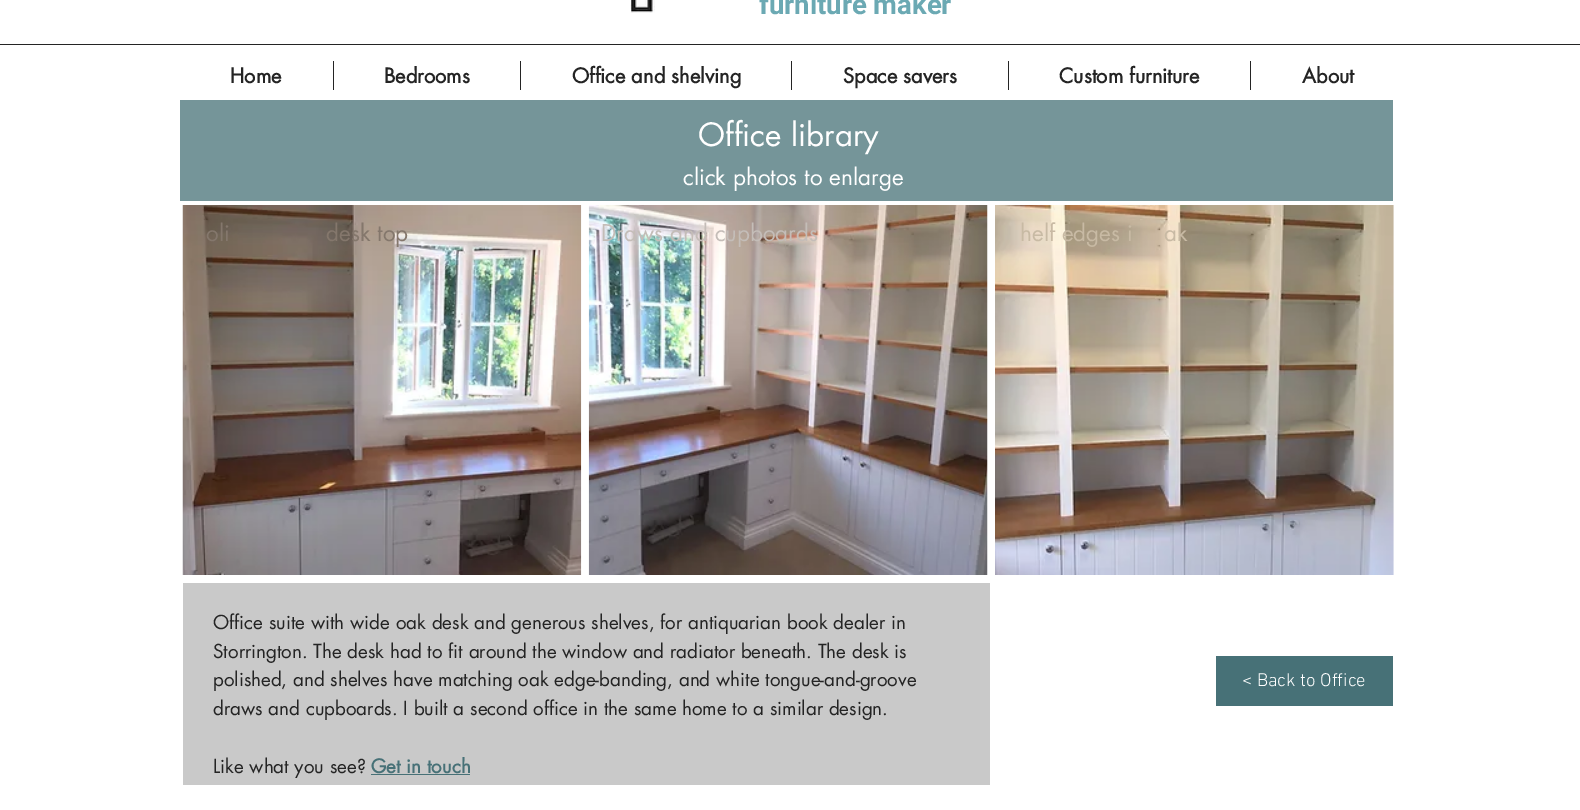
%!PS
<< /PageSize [1580 810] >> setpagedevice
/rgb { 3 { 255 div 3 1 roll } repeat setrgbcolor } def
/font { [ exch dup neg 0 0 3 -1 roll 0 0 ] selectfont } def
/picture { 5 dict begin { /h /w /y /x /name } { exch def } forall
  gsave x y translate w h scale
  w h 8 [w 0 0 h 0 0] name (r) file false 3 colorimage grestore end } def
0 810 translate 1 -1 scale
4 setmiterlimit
255 255 255 rgb
0 0 1580 810 rectfill
(img/1.rgb) 630 0 25 13 picture
[
  [0 44 1580 1 36 36 36]
  [333 61 1 29 36 36 36]
  [520 61 1 29 36 36 36]
  [791 61 1 29 36 36 36]
  [1008 61 1 29 36 36 36]
  [1250 61 1 29 36 36 36]
  [180 100 1213 101 117 149 153]
] { aload pop rgb rectfill } forall
(img/2.rgb) 182 205 400 370 picture
(img/3.rgb) 588 205 400 370 picture
(img/4.rgb) 995 205 399 370 picture
[
  [183 583 807 202 201 201 201]
  [371 774 99 1 71 113 119]
  [1216 656 177 50 71 113 119]
] { aload pop rgb rectfill } forall
/Roboto-Bold 27.5 font
107 169 179 rgb
759 14 moveto (furniture maker) show
/futura-Bold 20 font
36 36 36 rgb
[
  [(Home) 230 83]
  [(Bedrooms) 384 83]
  [(Office and shelving) 572 83]
  [(Space savers) 843 83]
  [(Custom furniture) 1059 83]
  [(About) 1302 83]
] { aload pop moveto show } forall
/futura-Regular 31.25 font
255 255 255 rgb
698 146 moveto (Office library) show
/futura-Regular 22.5 font
683 185 moveto (click photos to enlarge) show
132 119 108 rgb
206 241 moveto (oli) show
326 241 moveto (desk top) show
196 189 184 rgb
601 241 moveto (Draws and cupboards) show
200 186 164 rgb
1020 241 moveto (helf edges i) show
1164 241 moveto (ak) show
/futura-Regular 18.75 font
36 36 36 rgb
[
  [(Office suite with wide oak desk and generous shelves, for antiquarian book dealer in) 213 629]
  [(Storrington. The desk had to fit around the window and radiator beneath. The desk is) 213 658]
  [(polished, and shelves have matching oak edge-banding, and white tongue-and-groove) 213 686]
  [(draws and cupboards. I built a second office in the same home to a similar design.) 213 715]
  [(Like what you see?) 213 773]
] { aload pop moveto show } forall
/futura-Bold 18.75 font
71 113 119 rgb
371 773 moveto (Get in touch) show
/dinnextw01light-Light 18.75 font
255 255 255 rgb
1242 686 moveto (< Back to Office) show
showpage
